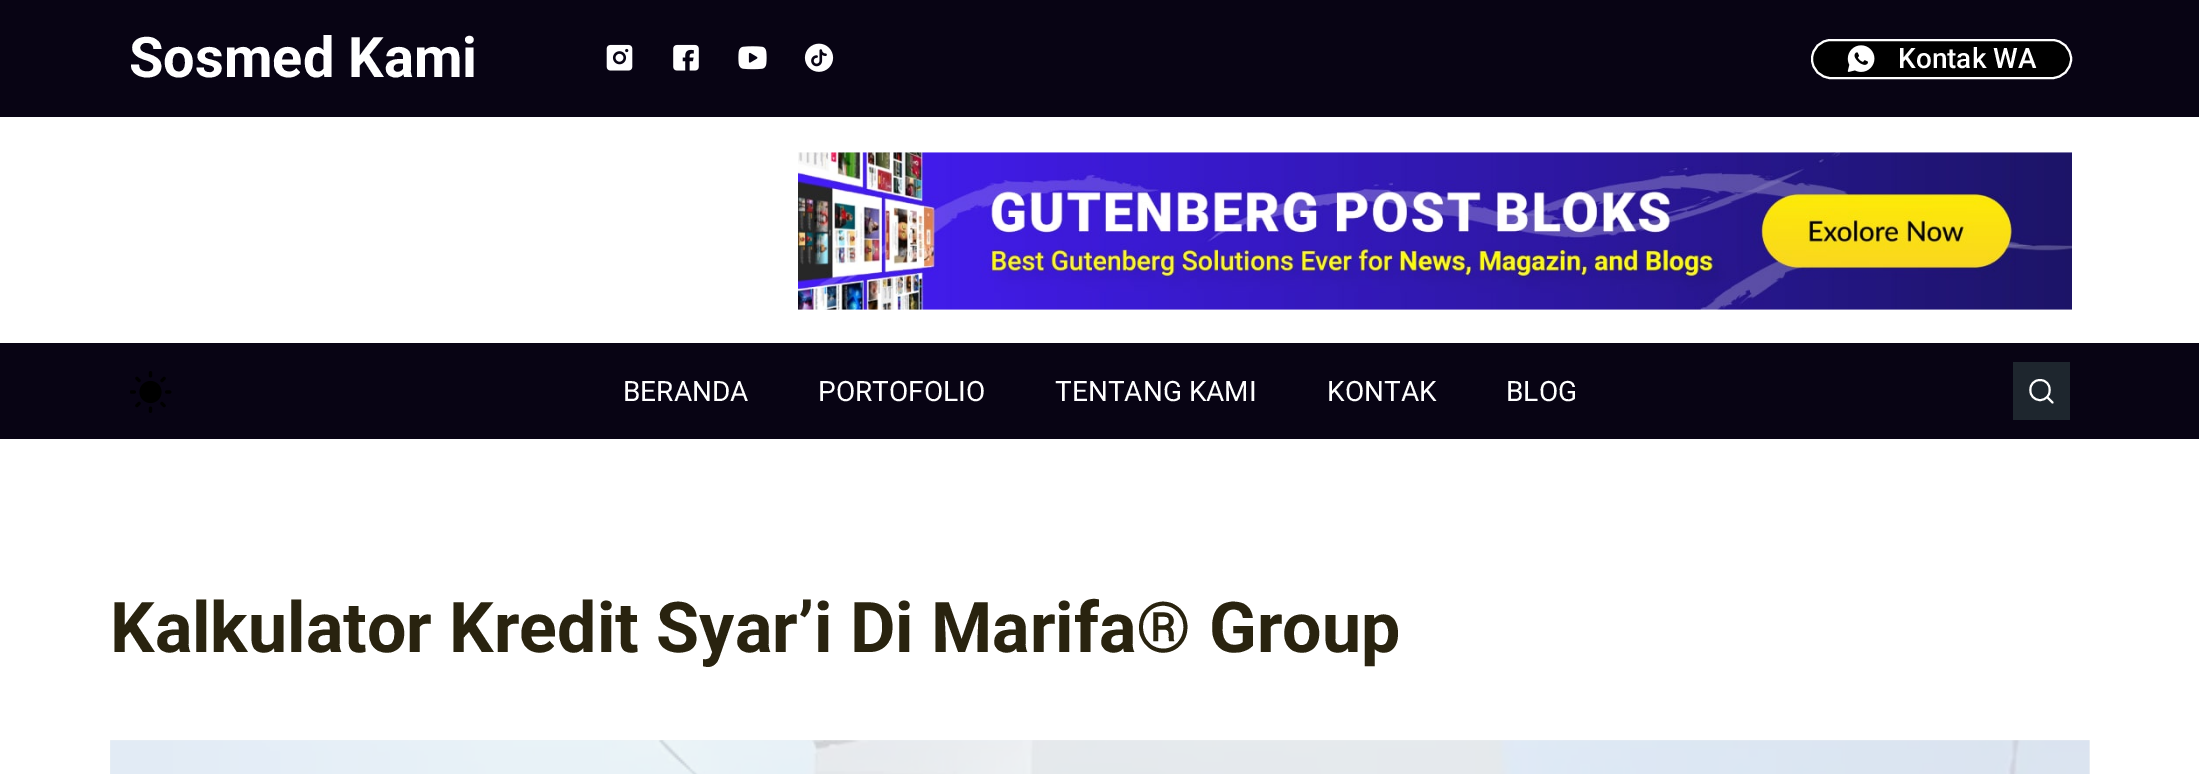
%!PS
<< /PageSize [2199 774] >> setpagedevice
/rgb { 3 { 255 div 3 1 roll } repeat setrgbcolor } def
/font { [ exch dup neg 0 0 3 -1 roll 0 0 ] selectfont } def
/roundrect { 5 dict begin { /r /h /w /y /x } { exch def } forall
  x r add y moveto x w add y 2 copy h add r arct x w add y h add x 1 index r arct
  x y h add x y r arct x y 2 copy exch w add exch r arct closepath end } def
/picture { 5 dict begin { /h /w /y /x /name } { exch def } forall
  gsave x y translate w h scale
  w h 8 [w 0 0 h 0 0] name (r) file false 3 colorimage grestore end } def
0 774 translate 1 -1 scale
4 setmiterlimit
255 255 255 rgb
0 0 2199 774 rectfill
8 4 20 rgb
0 0 2199 117 rectfill
(img/1.rgb) 606 44 27 27 picture
(img/2.rgb) 673 44 26 27 picture
(img/3.rgb) 738 46 29 24 picture
(img/4.rgb) 804 43 30 29 picture
0 0 0 rgb
1812 40 259 38 19 roundrect gsave fill grestore
255 255 255 rgb
2 setlinewidth
stroke
(img/5.rgb) 1847 45 28 27 picture
(img/6.rgb) 798 152 1274 158 picture
8 4 20 rgb
0 343 2199 96 rectfill
(img/7.rgb) 130 371 42 42 picture
30 38 46 rgb
2013 362 57 58 rectfill
255 255 255 rgb
1.9 setlinewidth
1 setlinecap
1 setlinejoin
2040 400 moveto 2053 400 2053 380 2040 380 curveto 2027 380 2027 400 2040 400 curveto closepath 2052.5 402.5 moveto 2047 397 lineto stroke
245 245 245 rgb
110 740 1980 34 rectfill
(img/8.rgb) 110 740 1980 34 picture
/Roboto-Bold 56 font
255 255 255 rgb
129 77 moveto (Sosmed Kami) show
/Roboto-Medium 28 font
1898 68 moveto (Kontak WA) show
/Roboto-Regular 28 font
[
  [(BERANDA) 623 401]
  [(PORTOFOLIO) 818 401]
  [(TENTANG KAMI) 1055 401]
  [(KONTAK) 1327 401]
  [(BLOG) 1506 401]
] { aload pop moveto show } forall
/Roboto-Bold 70 font
41 35 15 rgb
110 652 moveto (Kalkulator Kredit Syar’i Di Marifa® Group) show
showpage
